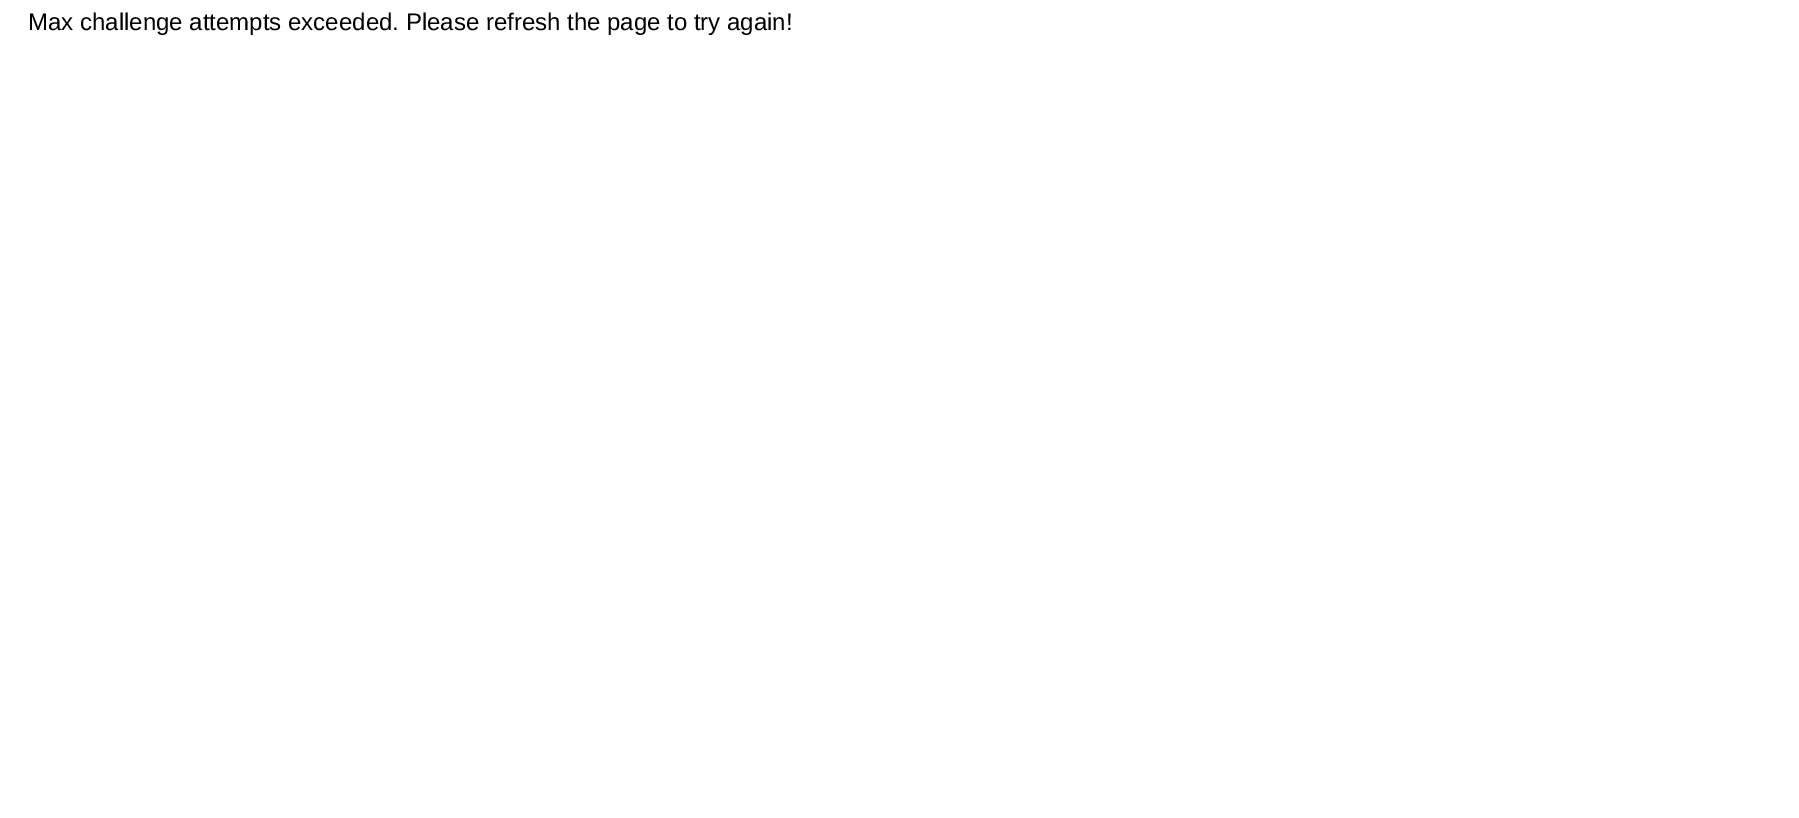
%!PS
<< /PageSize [1799 818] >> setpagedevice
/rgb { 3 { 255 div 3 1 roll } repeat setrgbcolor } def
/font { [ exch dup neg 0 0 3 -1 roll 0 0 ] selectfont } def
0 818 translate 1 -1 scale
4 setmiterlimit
255 255 255 rgb
0 0 1799 818 rectfill
/LiberationSans-Regular 24 font
0 0 0 rgb
28 30 moveto (Max challenge attempts exceeded. Please refresh the page to try again!) show
showpage
